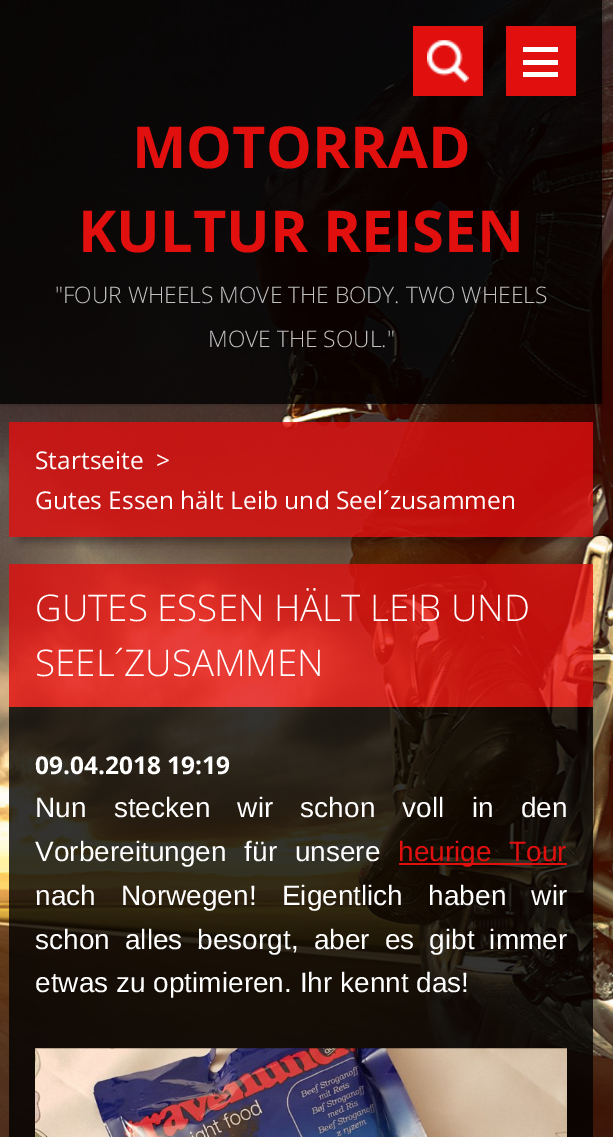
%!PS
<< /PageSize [613 1137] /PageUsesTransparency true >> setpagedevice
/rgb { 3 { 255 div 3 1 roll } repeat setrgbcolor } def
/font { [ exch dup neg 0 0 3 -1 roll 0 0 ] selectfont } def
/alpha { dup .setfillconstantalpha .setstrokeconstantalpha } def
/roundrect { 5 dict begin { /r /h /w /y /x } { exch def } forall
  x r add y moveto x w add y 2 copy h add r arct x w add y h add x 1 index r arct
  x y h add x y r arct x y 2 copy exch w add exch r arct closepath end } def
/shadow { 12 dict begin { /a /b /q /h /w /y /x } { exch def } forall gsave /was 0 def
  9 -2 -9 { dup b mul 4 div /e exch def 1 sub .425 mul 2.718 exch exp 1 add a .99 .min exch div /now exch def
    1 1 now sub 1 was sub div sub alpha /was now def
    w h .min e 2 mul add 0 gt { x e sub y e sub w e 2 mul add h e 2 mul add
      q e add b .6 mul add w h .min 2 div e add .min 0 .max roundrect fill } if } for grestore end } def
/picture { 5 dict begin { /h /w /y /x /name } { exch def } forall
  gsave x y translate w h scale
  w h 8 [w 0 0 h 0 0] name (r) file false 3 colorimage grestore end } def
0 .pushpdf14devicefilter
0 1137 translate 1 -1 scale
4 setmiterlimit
255 255 255 rgb
0 0 613 1137 rectfill
(img/1.rgb) 0 0 613 1137 picture
0.1 alpha
0 0 0 rgb
2 setlinewidth
-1 -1 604 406 rectstroke
0.8 alpha
0 0 602 273 rectfill
1 alpha
226 15 15 rgb
413 26 70 70 rectfill
(img/2.rgb) 427 40 42 43 picture
[
  [506 26 70 70 226 15 15]
  [523 47 35 5 255 255 255]
  [523 60 35 5 255 255 255]
  [523 72 35 5 255 255 255]
] { aload pop rgb rectfill } forall
0.8 alpha
[
  [0 273 602 131 0 0 0]
] { aload pop rgb rectfill } forall
gsave
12 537 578 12 rectclip
1 alpha
19 446 564 95 0 5 0.35 shadow
grestore
[
  [9 422 584 115 226 15 15]
  [9 564 584 143 226 15 15]
  [9 707 584 430 0 0 0]
] { aload pop rgb rectfill } forall
1 alpha
[
  [399 863 168 2 226 15 15]
] { aload pop rgb rectfill } forall
(img/3.rgb) 35 1048 532 89 picture
/OpenSans-Bold 57.75 font
132 168 moveto (MOTORRAD) show
78 252 moveto (KULTUR REISEN) show
/OpenSans-Light 22.75 font
194 194 194 rgb
55 303 moveto ("FOUR WHEELS MOVE THE BODY. TWO WHEELS) show
208 347 moveto (MOVE THE SOUL.") show
/OpenSans-Regular 24.5 font
255 255 255 rgb
[
  [(Startseite) 35 469]
  [(>) 156 469]
  [(Gutes Essen hält Leib und Seel´zusammen) 35 509]
] { aload pop moveto show } forall
/OpenSans-Light 36.75 font
35 621 moveto (GUTES ESSEN HÄLT LEIB UND) show
35 676 moveto (SEEL´ZUSAMMEN) show
/OpenSans-Bold 24.5 font
35 774 moveto (09.04.2018 19:19) show
/LiberationSans-Regular 28 font
35 817 moveto 19.5 0 32 (Nun stecken wir schon voll in den) widthshow
35 861 moveto 10 0 32 (Vorbereitungen für unsere) widthshow
226 15 15 rgb
398 861 moveto 10 0 32 (heurige Tour) widthshow
255 255 255 rgb
35 905 moveto 17.5 0 32 (nach Norwegen! Eigentlich haben wir) widthshow
35 949 moveto 7.25 0 32 (schon alles besorgt, aber es gibt immer) widthshow
35 992 moveto (etwas zu optimieren. Ihr kennt das!) show
.poppdf14devicefilter showpage
